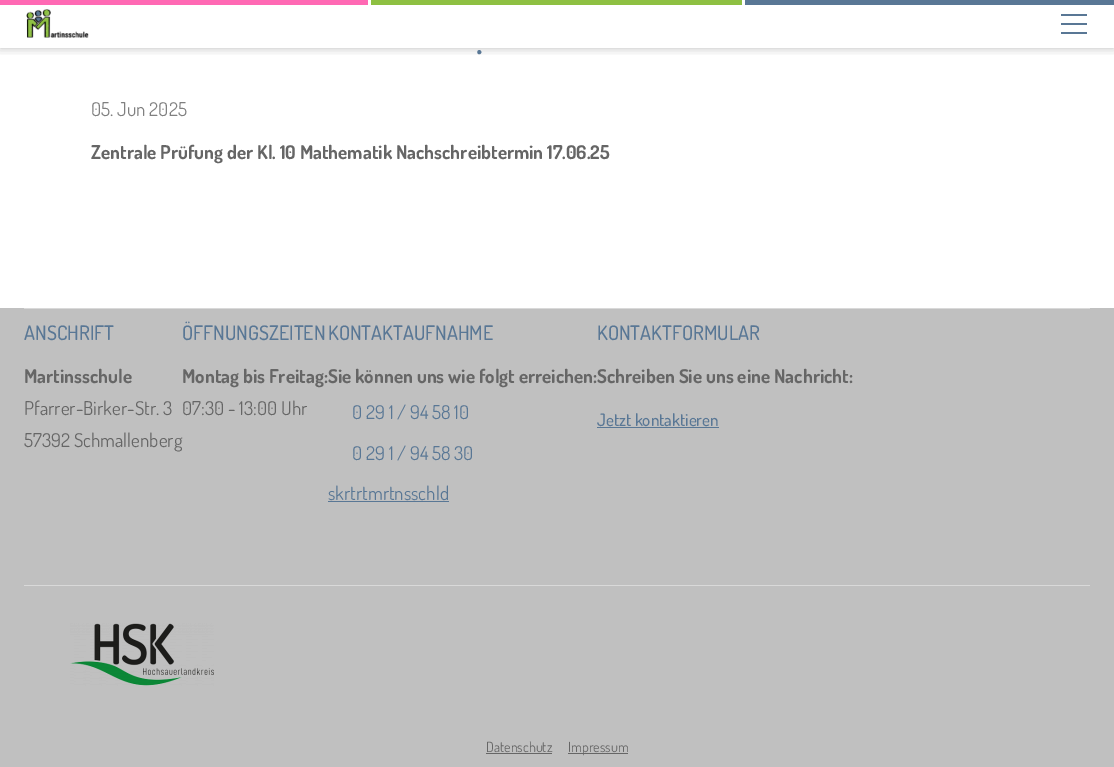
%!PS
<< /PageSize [1114 767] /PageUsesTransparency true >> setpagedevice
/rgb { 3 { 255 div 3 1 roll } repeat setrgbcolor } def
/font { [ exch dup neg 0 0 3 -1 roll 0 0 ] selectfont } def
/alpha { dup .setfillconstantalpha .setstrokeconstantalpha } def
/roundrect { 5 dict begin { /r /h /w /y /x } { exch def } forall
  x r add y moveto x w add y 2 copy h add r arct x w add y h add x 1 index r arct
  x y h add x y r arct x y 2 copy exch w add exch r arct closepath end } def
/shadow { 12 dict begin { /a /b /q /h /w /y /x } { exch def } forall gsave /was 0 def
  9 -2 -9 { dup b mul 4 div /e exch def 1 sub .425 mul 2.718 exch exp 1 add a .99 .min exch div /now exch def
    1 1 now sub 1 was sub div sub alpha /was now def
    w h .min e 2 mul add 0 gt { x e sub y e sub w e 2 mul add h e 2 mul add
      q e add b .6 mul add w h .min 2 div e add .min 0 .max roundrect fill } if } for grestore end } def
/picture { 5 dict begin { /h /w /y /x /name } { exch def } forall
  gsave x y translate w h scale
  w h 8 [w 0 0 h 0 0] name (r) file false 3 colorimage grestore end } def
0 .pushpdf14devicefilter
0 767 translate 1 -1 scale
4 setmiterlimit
192 192 192 rgb
0 0 1114 767 rectfill
255 255 255 rgb
0 0 1114 308 rectfill
gsave
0 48 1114 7 rectclip
0 0 0 rgb
0 0 1114 48 0 5 0.25 shadow
grestore
(img/1.rgb) 26 9 63 29 picture
[
  [1061 14 26 2 89 119 149]
  [1061 23 26 2 89 119 149]
  [1061 32 26 2 89 119 149]
  [0 0 368 5 255 105 180]
  [371 0 371 5 142 192 66]
  [745 0 369 5 89 119 149]
  [24 308 1066 1 217 217 217]
  [328 501 121 1 89 119 149]
  [597 427 122 1 89 119 149]
  [24 585 1066 1 217 217 217]
] { aload pop rgb rectfill } forall
(img/2.rgb) 70 623 144 63 picture
102 102 102 rgb
486 753 66 1 rectfill
568 753 60 1 rectfill
/Dosis-Light 53 font
89 119 149 rgb
475 54 moveto (.) show
/Dosis-Regular 19 font
128 128 128 rgb
91 116 moveto (05. Jun 2025) show
/Dosis-Bold 19 font
102 102 102 rgb
91 159 moveto (Zentrale Prüfung der Kl. 10 Mathematik Nachschreibtermin 17.06.25) show
/Dosis-Medium 20 font
89 119 149 rgb
24 340 moveto (ANSCHRIFT) show
/Dosis-Bold 19 font
102 102 102 rgb
24 383 moveto (Martinsschule) show
/Dosis-Regular 19 font
24 415 moveto (Pfarrer-Birker-Str. 3) show
24 447 moveto (57392 Schmallenberg) show
/Dosis-Medium 20 font
89 119 149 rgb
182 340 moveto (ÖFFNUNGSZEITEN) show
/Dosis-Bold 19 font
102 102 102 rgb
182 383 moveto (Montag bis Freitag:Sie können uns wie folgt erreichen:Schreiben Sie uns eine Nachricht:) show
/Dosis-Regular 19 font
182 415 moveto (07:30 - 13:00 Uhr) show
/Dosis-Medium 20 font
89 119 149 rgb
328 340 moveto (KONTAKTAUFNAHME) show
/Dosis-Regular 19 font
[
  [(0 29 1 / 94 58 10) 352 419]
  [(0 29 1 / 94 58 30) 352 460]
  [(skrtrtmrtnsschld) 328 500]
] { aload pop moveto show } forall
/Dosis-Medium 20 font
597 340 moveto (KONTAKTFORMULAR) show
/Dosis-Medium 17 font
597 426 moveto (Jetzt kontaktieren) show
/Dosis-Regular 14 font
102 102 102 rgb
486 752 moveto (Datenschutz) show
568 752 moveto (Impressum) show
.poppdf14devicefilter showpage
